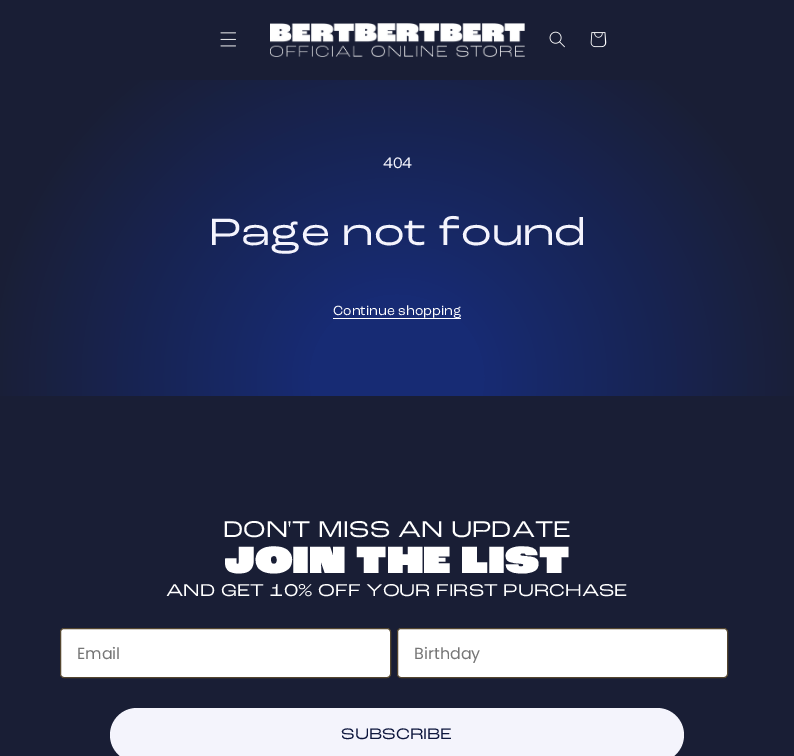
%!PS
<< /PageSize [794 756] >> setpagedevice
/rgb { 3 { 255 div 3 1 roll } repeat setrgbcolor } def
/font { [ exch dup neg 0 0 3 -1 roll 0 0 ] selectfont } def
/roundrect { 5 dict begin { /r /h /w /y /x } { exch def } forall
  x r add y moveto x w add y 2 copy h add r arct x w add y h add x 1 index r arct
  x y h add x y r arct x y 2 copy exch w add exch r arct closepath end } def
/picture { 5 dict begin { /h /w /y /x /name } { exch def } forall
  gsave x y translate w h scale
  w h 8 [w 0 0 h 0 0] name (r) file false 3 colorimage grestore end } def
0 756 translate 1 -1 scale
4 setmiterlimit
255 255 255 rgb
0 0 794 756 rectfill
gsave 0 80 moveto 794 80 lineto 794 396 lineto 0 396 lineto closepath clip newpath 397 378 translate 561 535 scale
<< /ShadingType 3 /ColorSpace /DeviceRGB /Coords [0 0 0 0 0 1] /Extend [true true] /Function << /FunctionType 3 /Domain [0 1] /Functions [<< /FunctionType 2 /Domain [0 1] /C0 [0.09 0.169 0.455] /C1 [0.09 0.169 0.455] /N 1 >> << /FunctionType 2 /Domain [0 1] /C0 [0.09 0.169 0.455] /C1 [0.098 0.118 0.208] /N 1 >> << /FunctionType 2 /Domain [0 1] /C0 [0.098 0.118 0.208] /C1 [0.098 0.118 0.208] /N 1 >>] /Bounds [0.15 0.74] /Encode [0 1 0 1 0 1] >> >> shfill grestore
25 30 53 rgb
0 0 794 80 rectfill
(img/1.rgb) 220 32 16 15 picture
(img/2.rgb) 270 23 255 34 picture
(img/3.rgb) 549 31 16 17 picture
(img/4.rgb) 590 32 17 16 picture
255 255 255 rgb
333 318 128 1 rectfill
25 30 53 rgb
0 396 794 360 rectfill
255 255 255 rgb
60.5 628.5 330 49 3.5 roundrect gsave fill grestore
84 70 47 rgb
stroke
255 255 255 rgb
397.5 628.5 330 49 3.5 roundrect gsave fill grestore
84 70 47 rgb
stroke
244 244 252 rgb
110 708 574 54 27 roundrect fill
/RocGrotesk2-Regular 16 font
244 244 253 rgb
383 168 moveto (404) show
/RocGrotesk-Regular 40 font
209 245 moveto (Page not found) show
/RocGrotesk2-Regular 14 font
255 255 255 rgb
333 315 moveto (Continue shopping) show
/RocGrotesk-Regular 24 font
223 537 moveto (DON'T MISS AN UPDATE) show
/RocGrotesk-Black 40 font
224 573 moveto (JOIN THE LIST) show
/RocGrotesk-Regular 18 font
166 596 moveto (AND GET 10% OFF YOUR FIRST PURCHASE) show
/Poppins-Regular 16 font
118 118 118 rgb
77 659 moveto (Email) show
414 659 moveto (Birthday) show
/RocGrotesk-Regular 16 font
14 23 62 rgb
341 739 moveto (SUBSCRIBE) show
showpage
